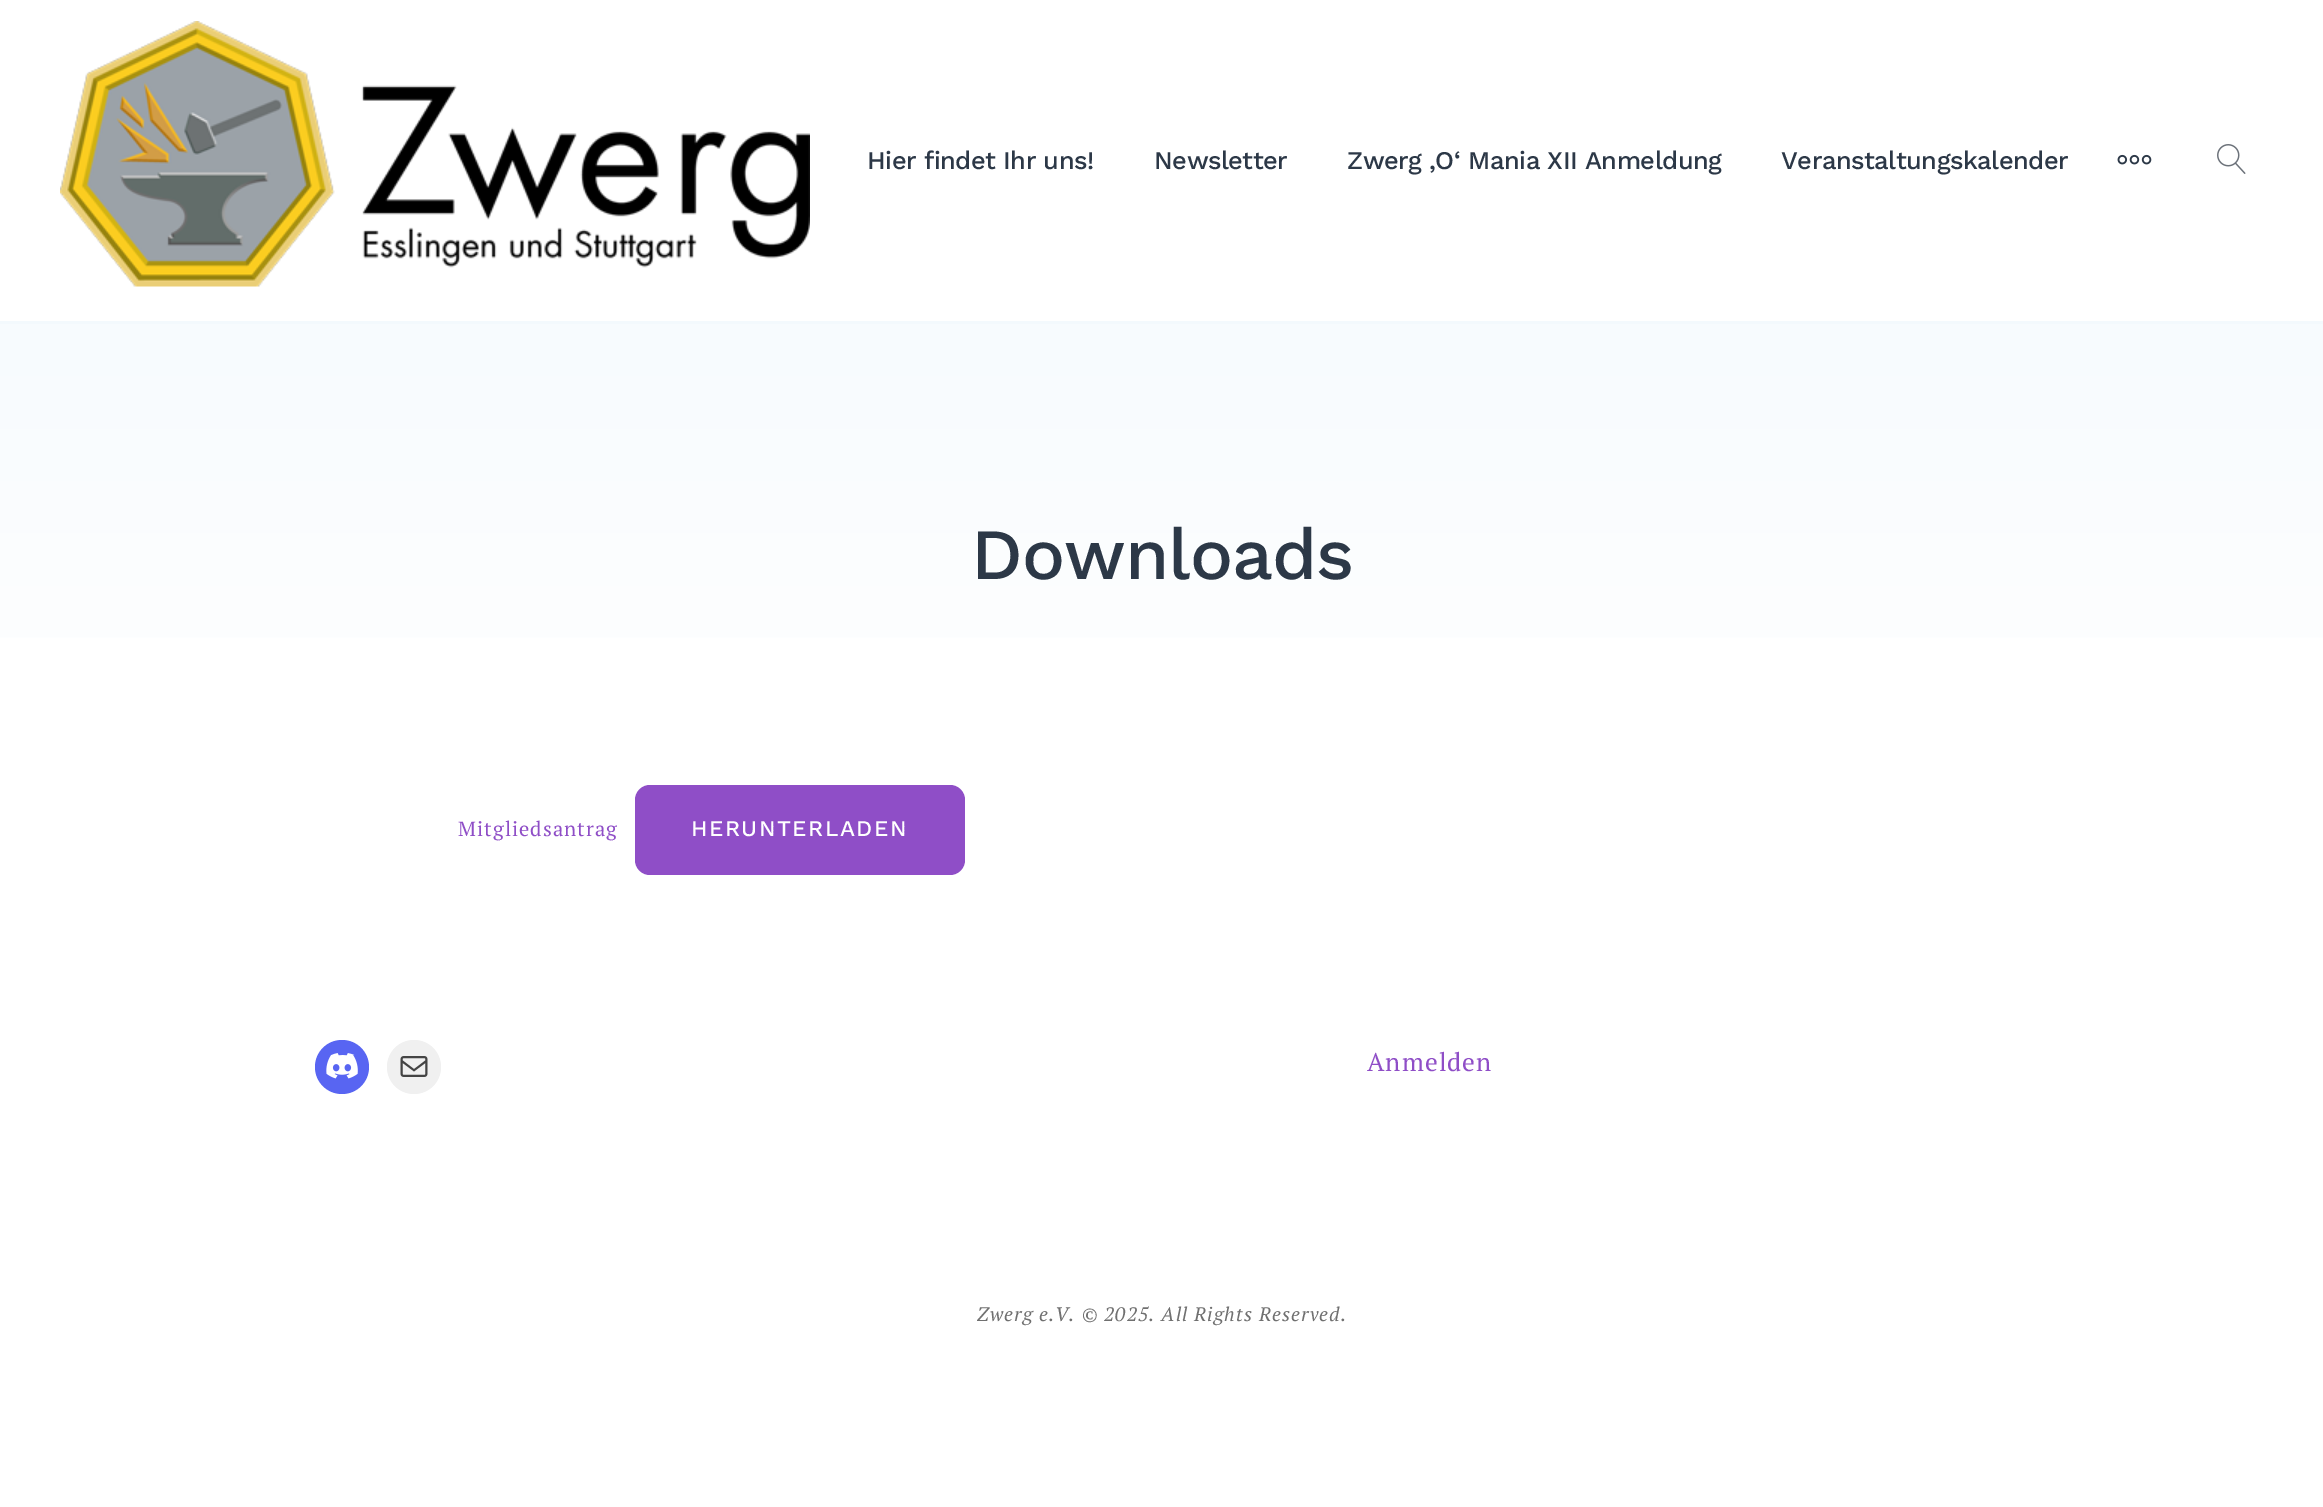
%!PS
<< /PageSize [2323 1507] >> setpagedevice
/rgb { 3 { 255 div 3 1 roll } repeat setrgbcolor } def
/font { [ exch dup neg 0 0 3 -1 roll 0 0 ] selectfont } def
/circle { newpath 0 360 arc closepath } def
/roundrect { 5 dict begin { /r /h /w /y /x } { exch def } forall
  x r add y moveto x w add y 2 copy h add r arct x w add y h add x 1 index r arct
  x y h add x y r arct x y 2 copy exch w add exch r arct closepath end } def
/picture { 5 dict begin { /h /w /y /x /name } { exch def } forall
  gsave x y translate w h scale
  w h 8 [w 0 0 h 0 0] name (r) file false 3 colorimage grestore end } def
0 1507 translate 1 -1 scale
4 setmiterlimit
255 255 255 rgb
0 0 2323 1507 rectfill
243 249 253 rgb
0 321 2323 3 rectfill
(img/1.rgb) 60 21 750 266 picture
(img/2.rgb) 2117 154 35 11 picture
(img/3.rgb) 2217 144 29 30 picture
gsave 0 324 moveto 2323 324 lineto 2323 638 lineto 0 638 lineto closepath clip newpath
<< /ShadingType 2 /ColorSpace /DeviceRGB /Coords [1162 324 1162 875] /Extend [true true] /Function << /FunctionType 3 /Domain [0 1] /Functions [<< /FunctionType 2 /Domain [0 1] /C0 [0.969 0.984 0.996] /C1 [1 1 1] /N 1 >> << /FunctionType 2 /Domain [0 1] /C0 [1 1 1] /C1 [1 1 1] /N 1 >>] /Bounds [0.83] /Encode [0 1 0 1] >> >> shfill grestore
143 78 199 rgb
635 785 330 90 15 roundrect fill
88 101 242 rgb
342 1067 27 circle fill
(img/4.rgb) 326 1053 32 26 picture
240 240 240 rgb
414 1067 27 circle fill
(img/5.rgb) 400 1056 28 21 picture
/WorkSans-Medium 25.5 font
44 56 71 rgb
867 169 moveto -0.5 0 (Hier findet Ihr uns!) ashow
1154 169 moveto -0.5 0 (Newsletter) ashow
1347 169 moveto -0.5 0 (Zwerg ‚O‘ Mania XII Anmeldung) ashow
1781 169 moveto -0.5 0 (Veranstaltungskalender) ashow
/WorkSans-Medium 72 font
971 579 moveto -1 0 (Downloads) ashow
/PTSerif-Regular 20.5 font
143 78 199 rgb
458 836 moveto 1.05 0 (Mitgliedsantrag) ashow
/WorkSans-Medium 22.5 font
255 255 255 rgb
691 836 moveto 1.5 0 (HERUNTERLADEN) ashow
/PTSerif-Regular 25.5 font
143 78 199 rgb
1367 1071 moveto 1.05 0 (Anmelden) ashow
/PTSerif-Italic 19.5 font
112 112 112 rgb
977 1321 moveto 1.05 0 (Zwerg e.V. © 2025. All Rights Reserved.) ashow
showpage
